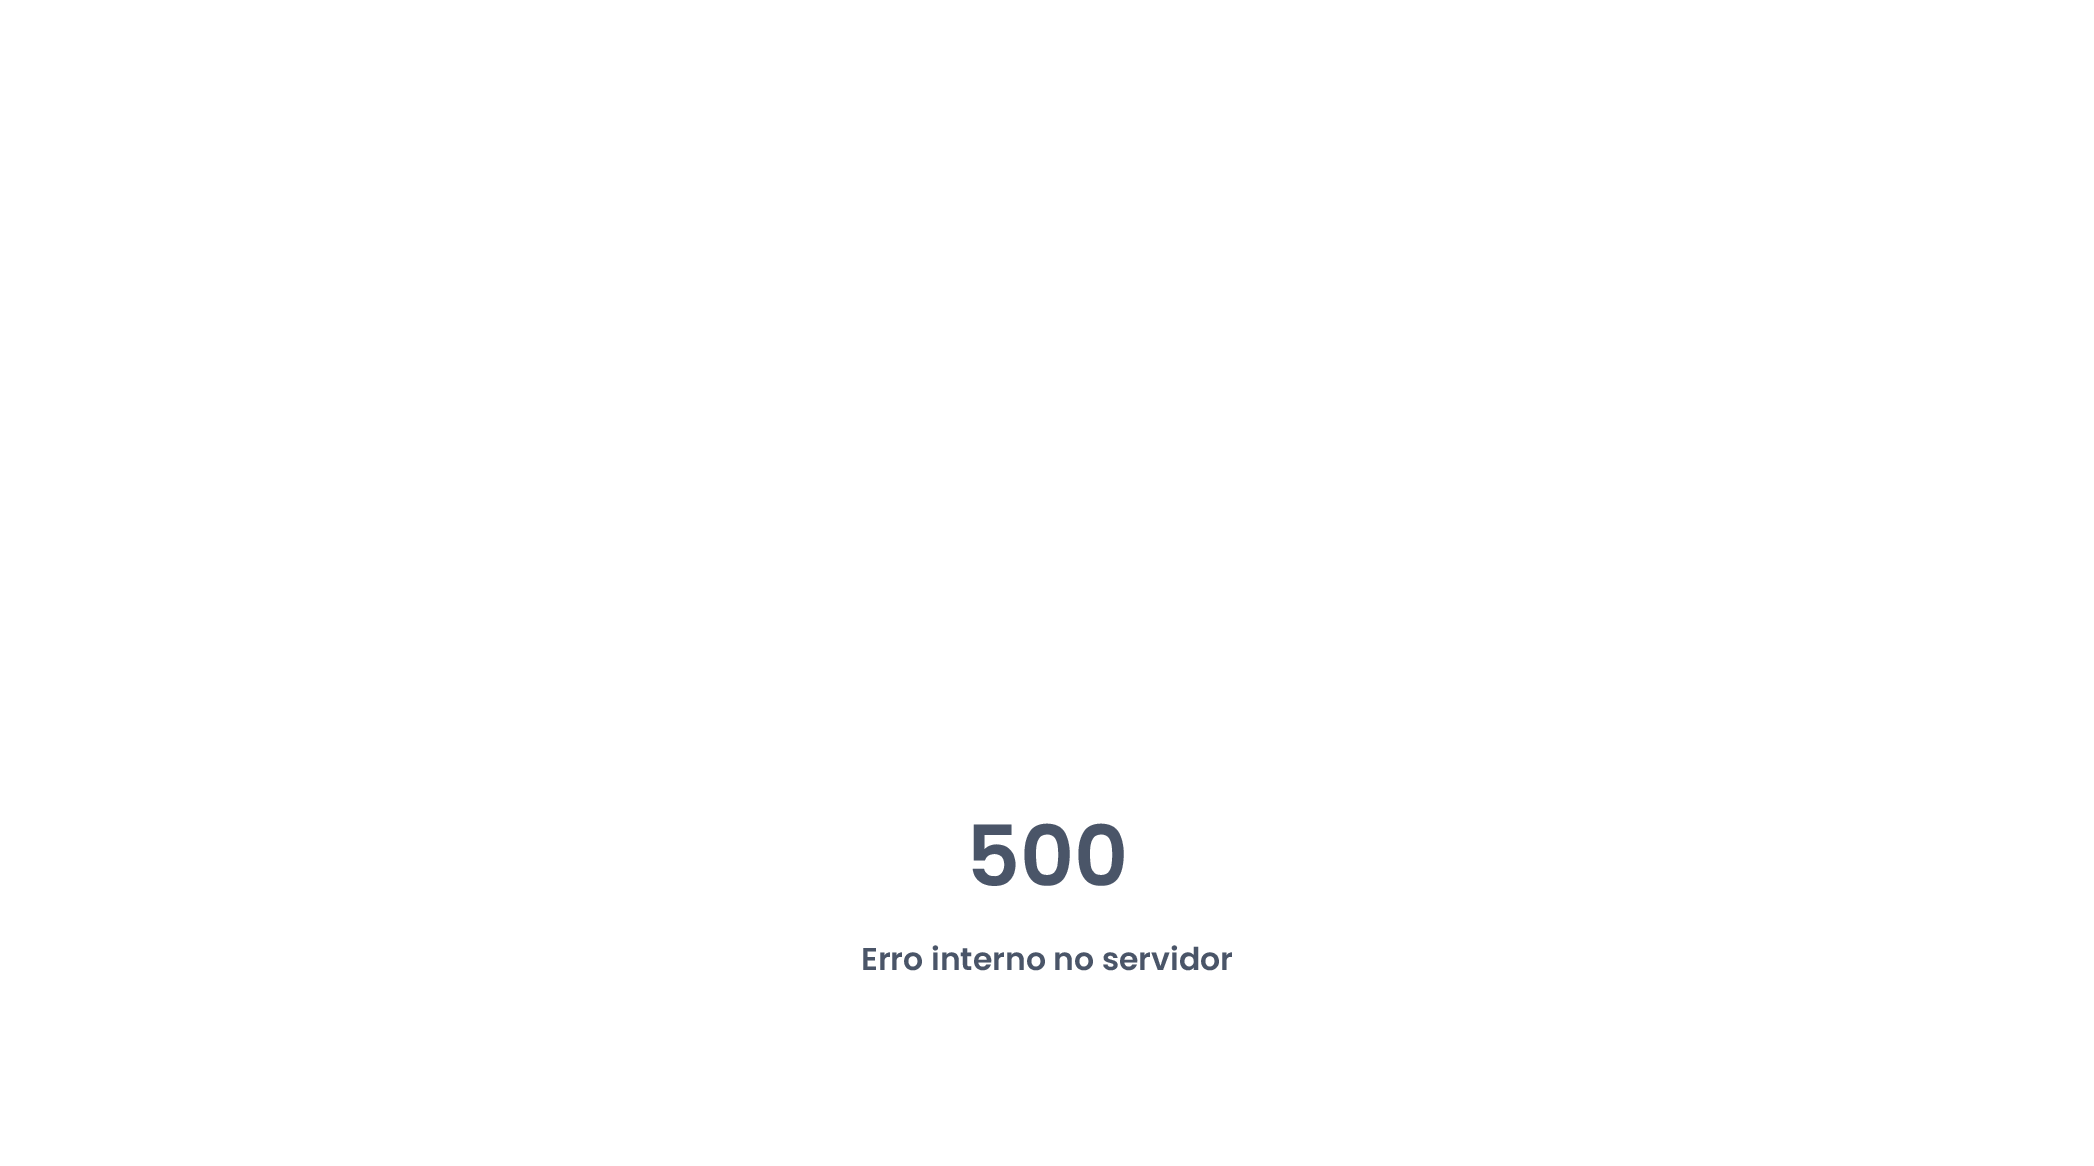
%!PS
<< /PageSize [2094 1166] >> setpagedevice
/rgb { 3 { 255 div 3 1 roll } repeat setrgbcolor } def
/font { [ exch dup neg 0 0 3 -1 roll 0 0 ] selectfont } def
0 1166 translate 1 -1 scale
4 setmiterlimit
255 255 255 rgb
0 0 2094 1166 rectfill
/Poppins-SemiBold 84 font
74 85 104 rgb
966 886 moveto (500) show
/Poppins-SemiBold 31.5 font
861 970 moveto (Erro interno no servidor) show
showpage
